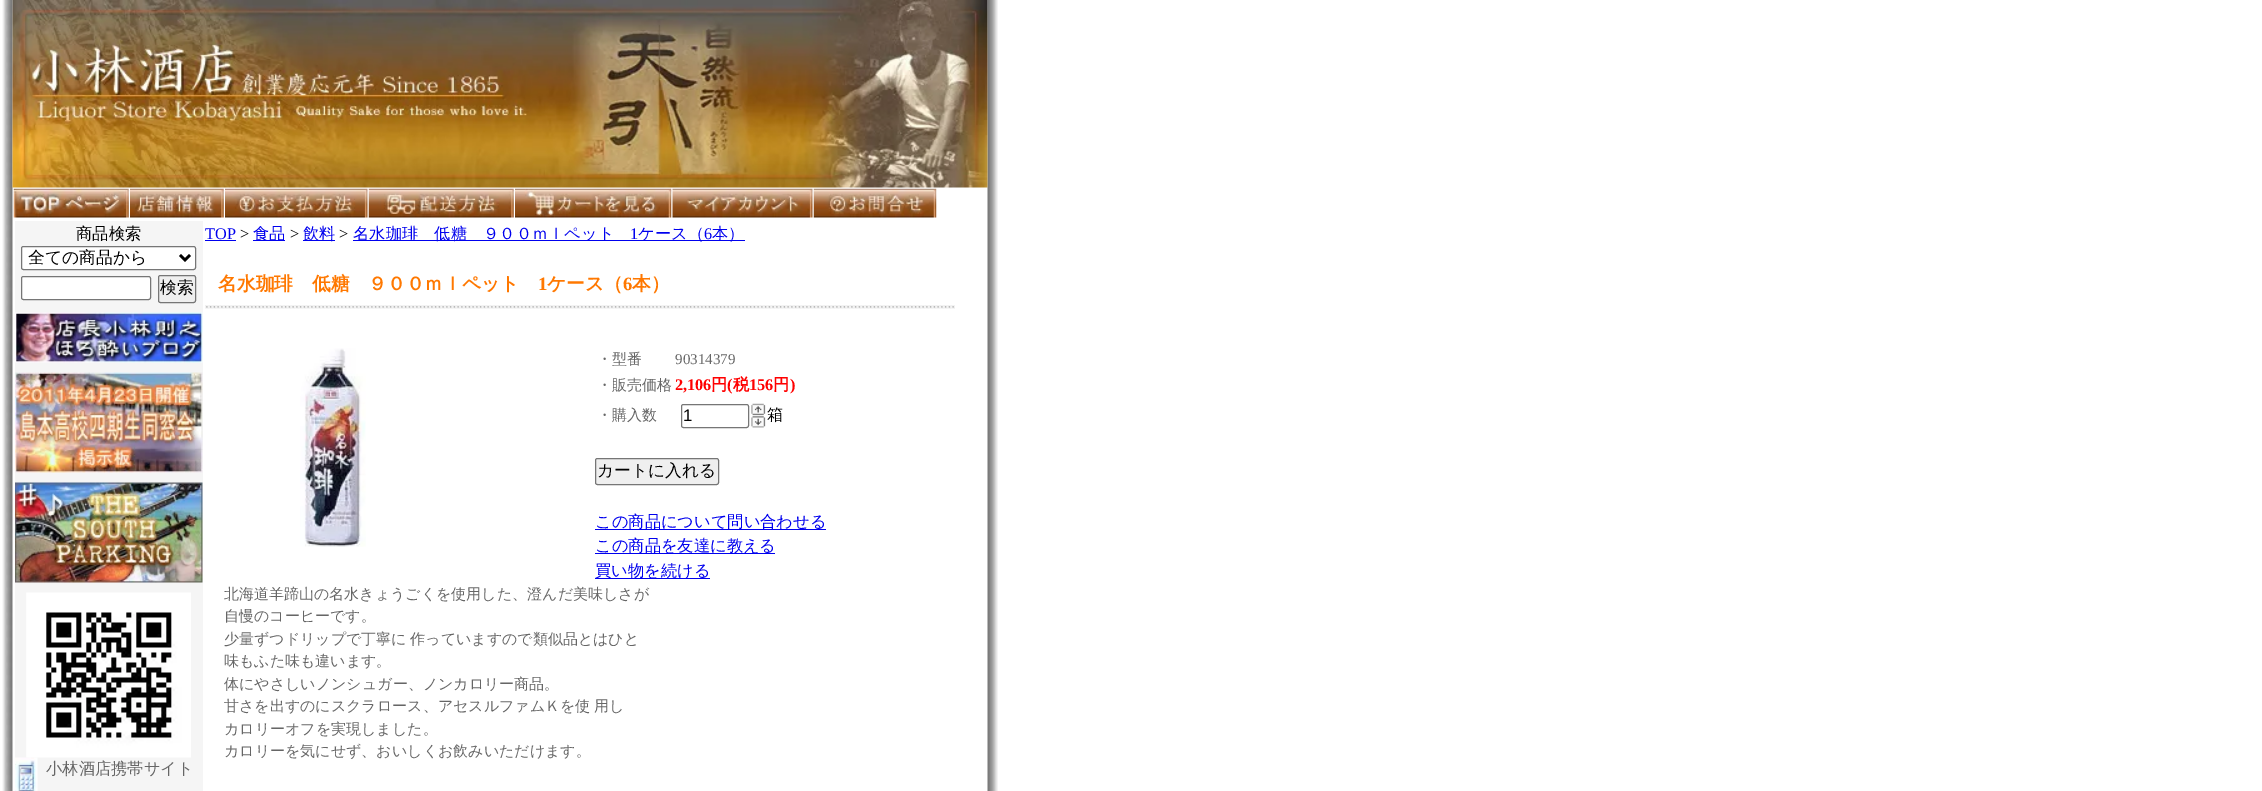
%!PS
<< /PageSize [2262 791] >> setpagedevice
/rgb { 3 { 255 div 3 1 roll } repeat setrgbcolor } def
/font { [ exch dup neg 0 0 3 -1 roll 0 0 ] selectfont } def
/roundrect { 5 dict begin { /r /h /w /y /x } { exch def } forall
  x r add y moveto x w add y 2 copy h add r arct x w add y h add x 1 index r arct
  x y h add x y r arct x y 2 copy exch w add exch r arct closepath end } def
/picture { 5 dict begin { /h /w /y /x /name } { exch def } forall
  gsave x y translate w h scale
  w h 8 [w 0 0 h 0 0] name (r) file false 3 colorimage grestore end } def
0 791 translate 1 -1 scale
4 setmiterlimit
255 255 255 rgb
0 0 2262 791 rectfill
(img/1.rgb) 2 0 11 791 picture
(img/19.rgb) 987 0 11 791 picture
(img/2.rgb) 12 0 976 188 picture
(img/3.rgb) 13 188 116 30 picture
(img/4.rgb) 130 188 94 30 picture
(img/5.rgb) 225 188 143 30 picture
(img/6.rgb) 368 188 146 30 picture
(img/7.rgb) 515 188 157 30 picture
(img/8.rgb) 672 188 141 30 picture
(img/9.rgb) 813 188 124 30 picture
245 245 245 rgb
15 221 188 570 rectfill
255 255 255 rgb
21.5 246.5 174 23 2 roundrect gsave fill grestore
118 118 118 rgb
stroke
0 0 0 rgb
2.5 setlinewidth
180 255 moveto 185 260 lineto 190 255 lineto stroke
255 255 255 rgb
21.5 276.5 129 23 2 roundrect gsave fill grestore
118 118 118 rgb
1 setlinewidth
stroke
239 239 239 rgb
158.5 275.5 37 27 2 roundrect gsave fill grestore
118 118 118 rgb
stroke
(img/10.rgb) 15 312 188 51 picture
(img/11.rgb) 15 372 188 101 picture
(img/12.rgb) 15 482 188 101 picture
(img/14.rgb) 15 757 23 34 picture
(img/13.rgb) 26 592 165 166 picture
[
  [205 240 31 1 0 0 238]
  [253 240 32 1 0 0 238]
  [303 240 32 1 0 0 238]
  [353 240 392 1 0 0 238]
] { aload pop rgb rectfill } forall
(img/15.rgb) 205 305 750 4 picture
(img/16.rgb) 300 348 66 199 picture
118 118 118 rgb
681.5 404.5 67 23 2 roundrect stroke
(img/17.rgb) 751 403 15 13 picture
(img/18.rgb) 751 416 15 12 picture
239 239 239 rgb
595.5 458.5 123 26 2 roundrect gsave fill grestore
118 118 118 rgb
stroke
[
  [595 529 231 1 0 0 238]
  [595 553 180 1 0 0 238]
  [595 578 115 1 0 0 238]
] { aload pop rgb rectfill } forall
/WenQuanYiZenHei-Medium 16.25 font
0 0 0 rgb
76 239 moveto (商品検索) show
/WenQuanYiZenHei-Medium 16.75 font
28 263 moveto (全ての商品から) show
160 293 moveto (検索) show
/WenQuanYiZenHei-Medium 16.25 font
102 102 102 rgb
46 774 moveto (小林酒店携帯サイト) show
/LiberationSerif-Regular 16.25 font
0 0 238 rgb
205 239 moveto (TOP) show
0 0 0 rgb
240 239 moveto (>) show
/WenQuanYiZenHei-Medium 16.25 font
0 0 238 rgb
253 239 moveto (食品) show
/LiberationSerif-Regular 16.25 font
0 0 0 rgb
290 239 moveto (>) show
/WenQuanYiZenHei-Medium 16.25 font
0 0 238 rgb
303 239 moveto (飲料) show
/LiberationSerif-Regular 16.25 font
0 0 0 rgb
339 239 moveto (>) show
/WenQuanYiZenHei-Medium 16.25 font
0 0 238 rgb
353 239 moveto (名水珈琲　低糖　９００ｍｌペット) show
/LiberationSerif-Regular 16.25 font
630 239 moveto (1) show
/WenQuanYiZenHei-Medium 16.25 font
638 239 moveto (ケース（) show
/LiberationSerif-Regular 16.25 font
704 239 moveto (6) show
/WenQuanYiZenHei-Medium 16.25 font
712 239 moveto (本）) show
/WenQuanYiZenHei-Bold 18.75 font
255 120 0 rgb
218 290 moveto (名水珈琲　低糖　９００ｍｌペット) show
/LiberationSerif-Bold 18.75 font
538 290 moveto (1) show
/WenQuanYiZenHei-Bold 18.75 font
547 290 moveto (ケース（) show
/LiberationSerif-Bold 18.75 font
623 290 moveto (6) show
/WenQuanYiZenHei-Bold 18.75 font
632 290 moveto (本）) show
/WenQuanYiZenHei-Medium 15 font
102 102 102 rgb
597 364 moveto (・型番) show
/LiberationSerif-Regular 15 font
675 364 moveto (90314379) show
/WenQuanYiZenHei-Medium 15 font
597 390 moveto (・販売価格) show
/LiberationSerif-Bold 16.25 font
255 0 0 rgb
675 390 moveto (2,106) show
/WenQuanYiZenHei-Bold 16.25 font
711 390 moveto (円) show
/LiberationSerif-Bold 16.25 font
727 390 moveto (\() show
/WenQuanYiZenHei-Bold 16.25 font
733 390 moveto (税) show
/LiberationSerif-Bold 16.25 font
749 390 moveto (156) show
/WenQuanYiZenHei-Bold 16.25 font
773 390 moveto (円) show
/LiberationSerif-Bold 16.25 font
790 390 moveto (\)) show
/WenQuanYiZenHei-Medium 15 font
102 102 102 rgb
597 420 moveto (・購入数) show
/LiberationSans-Regular 16.75 font
0 0 0 rgb
683 421 moveto (1) show
/WenQuanYiZenHei-Medium 16.25 font
767 420 moveto (箱) show
/WenQuanYiZenHei-Medium 16.75 font
597 476 moveto (カートに入れる) show
/WenQuanYiZenHei-Medium 16.25 font
0 0 238 rgb
[
  [(この商品について問い合わせる) 595 527]
  [(この商品を友達に教える) 595 551]
  [(買い物を続ける) 595 576]
] { aload pop moveto show } forall
/WenQuanYiZenHei-Medium 15 font
102 102 102 rgb
224 599 moveto (北海道羊蹄山の名水きょうごくを使用した、澄んだ美味しさが) show
224 621 moveto (自慢のコーヒーです。) show
224 644 moveto -1 0 32 (少量ずつドリップで丁寧に 作っていますので類似品とはひと) widthshow
224 666 moveto (味もふた味も違います。) show
224 689 moveto (体にやさしいノンシュガー、ノンカロリー商品。) show
224 711 moveto -1 0 32 (甘さを出すのにスクラロース、アセスルファムＫを使 用し) widthshow
224 734 moveto (カロリーオフを実現しました。) show
224 756 moveto (カロリーを気にせず、おいしくお飲みいただけます。) show
showpage
